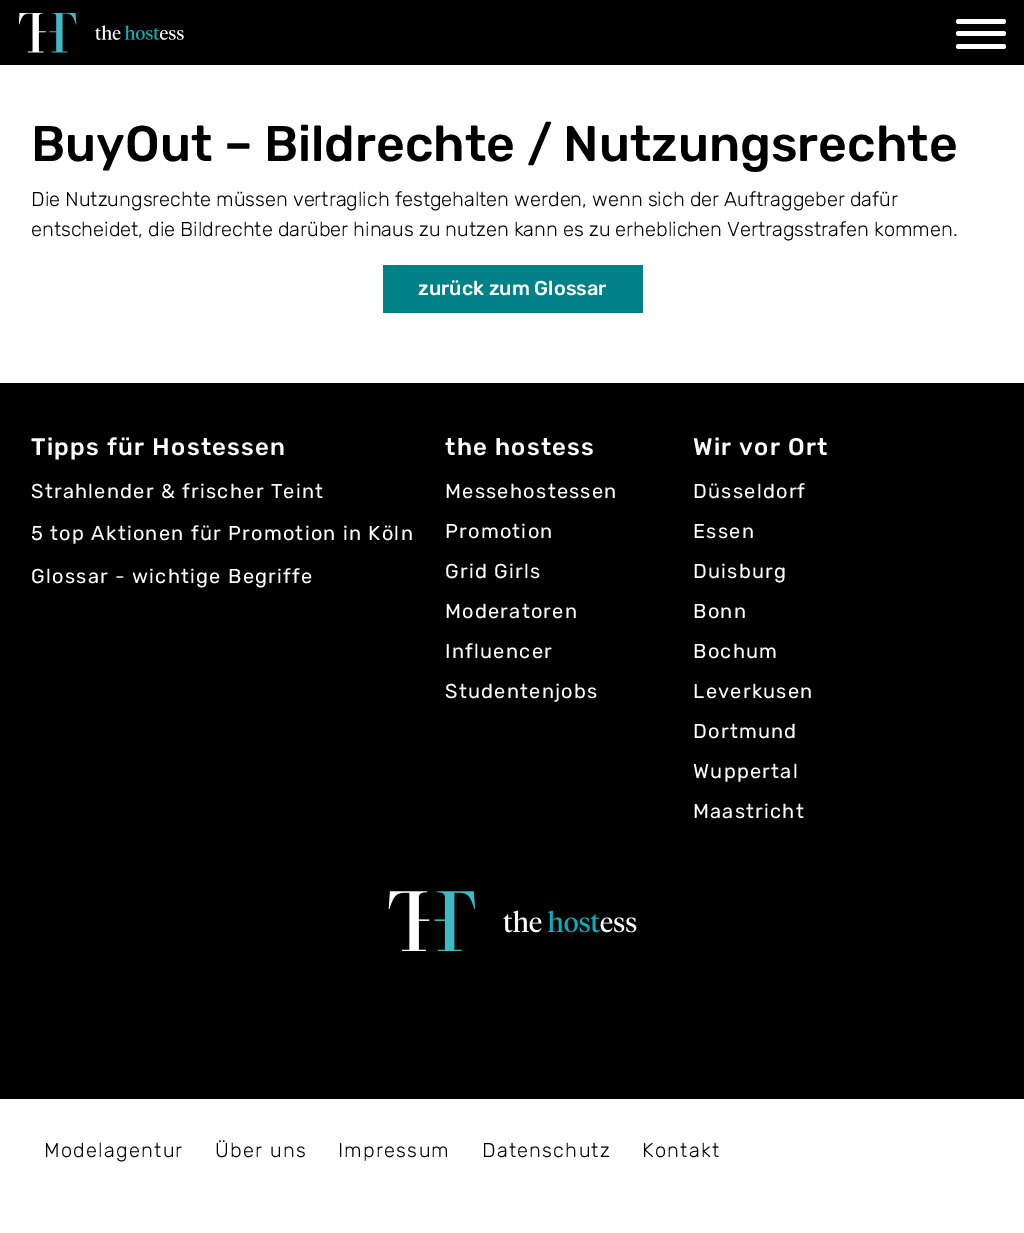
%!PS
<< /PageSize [1024 1233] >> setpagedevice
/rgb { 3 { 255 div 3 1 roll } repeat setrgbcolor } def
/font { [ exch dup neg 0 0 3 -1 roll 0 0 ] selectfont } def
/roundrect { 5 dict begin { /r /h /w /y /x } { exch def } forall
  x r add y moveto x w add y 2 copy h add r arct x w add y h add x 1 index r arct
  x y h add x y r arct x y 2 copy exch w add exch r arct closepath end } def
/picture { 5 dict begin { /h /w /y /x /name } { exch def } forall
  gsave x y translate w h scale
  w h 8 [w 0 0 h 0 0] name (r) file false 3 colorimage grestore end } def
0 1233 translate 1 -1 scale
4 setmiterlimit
255 255 255 rgb
0 0 1024 1233 rectfill
0 0 0 rgb
0 0 1024 65 rectfill
(img/1.rgb) 19 13 165 40 picture
255 255 255 rgb
956 31 50 5 2.5 roundrect fill
956 19 50 5 2.5 roundrect fill
956 44 50 5 2.5 roundrect fill
0 129 136 rgb
383 265 260 48 rectfill
0 0 0 rgb
0 383 1024 716 rectfill
(img/2.rgb) 388 891 249 60 picture
/Rubik-Medium 50 font
31 161 moveto (BuyOut – Bildrechte / Nutzungsrechte) show
/Rubik-Light 20 font
31 206 moveto (Die Nutzungsrechte müssen vertraglich festgehalten werden, wenn sich der Auftraggeber dafür) show
31 236 moveto (entscheidet, die Bildrechte darüber hinaus zu nutzen kann es zu erheblichen Vertragsstrafen kommen.) show
/Rubik-Medium 20 font
255 255 255 rgb
418 295 moveto (zurück zum Glossar) show
/Rubik-Medium 24 font
31 455 moveto 1.25 0 (Tipps für Hostessen) ashow
/Rubik-Regular 20 font
31 498 moveto 1.25 0 (Strahlender & frischer Teint) ashow
31 540 moveto 1.25 0 (5 top Aktionen für Promotion in Köln) ashow
31 583 moveto 1.25 0 (Glossar - wichtige Begriffe) ashow
/Rubik-Medium 24 font
445 455 moveto 1.25 0 (the hostess) ashow
/Rubik-Regular 20 font
445 498 moveto 1.25 0 (Messehostessen) ashow
445 538 moveto 1.25 0 (Promotion) ashow
445 578 moveto 1.25 0 (Grid Girls) ashow
445 618 moveto 1.25 0 (Moderatoren) ashow
445 658 moveto 1.25 0 (Influencer) ashow
445 698 moveto 1.25 0 (Studentenjobs) ashow
/Rubik-Medium 24 font
693 455 moveto 1.25 0 (Wir vor Ort) ashow
/Rubik-Regular 20 font
693 498 moveto 1.25 0 (Düsseldorf) ashow
693 538 moveto 1.25 0 (Essen) ashow
693 578 moveto 1.25 0 (Duisburg) ashow
693 618 moveto 1.25 0 (Bonn) ashow
693 658 moveto 1.25 0 (Bochum) ashow
693 698 moveto 1.25 0 (Leverkusen) ashow
693 738 moveto 1.25 0 (Dortmund) ashow
693 778 moveto 1.25 0 (Wuppertal) ashow
693 818 moveto 1.25 0 (Maastricht) ashow
/Rubik-Light 20 font
0 0 0 rgb
44 1157 moveto 1.25 0 (Modelagentur) ashow
215 1157 moveto 1.25 0 (Über uns) ashow
338 1157 moveto 1.25 0 (Impressum) ashow
482 1157 moveto 1.25 0 (Datenschutz) ashow
642 1157 moveto 1.25 0 (Kontakt) ashow
showpage
